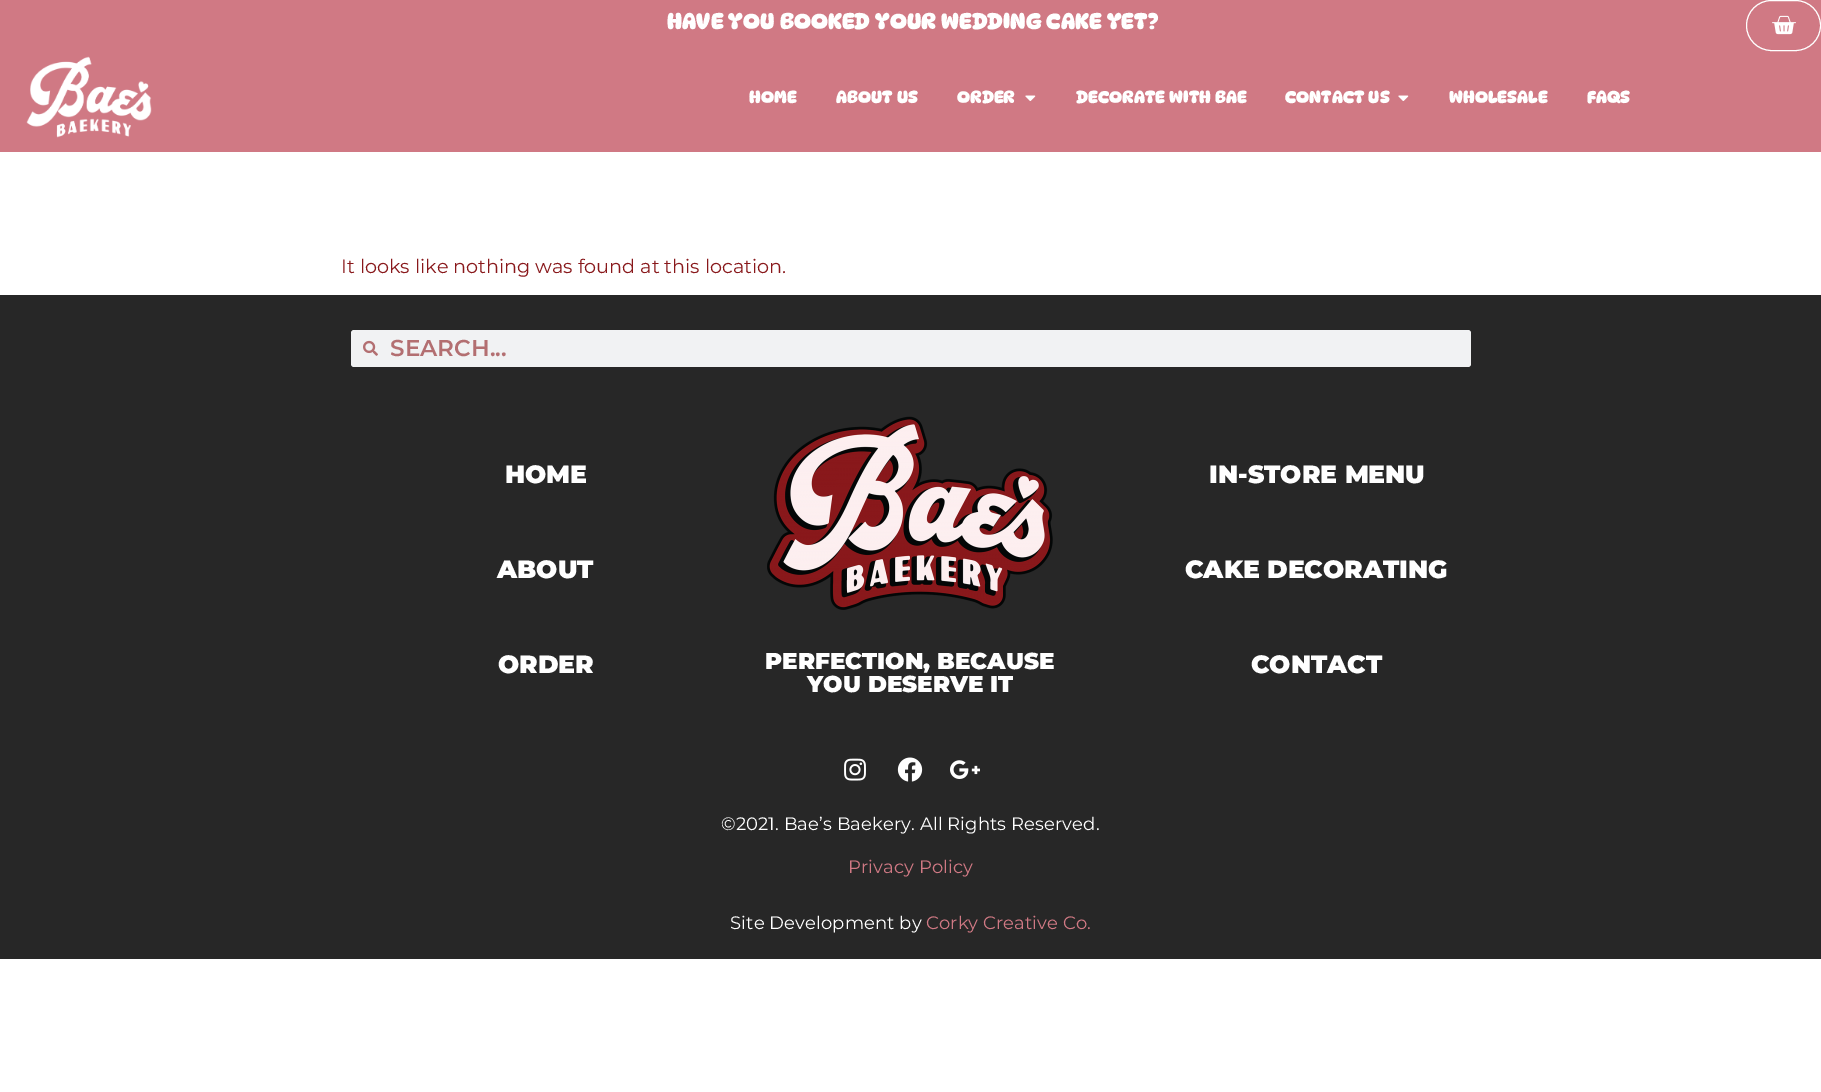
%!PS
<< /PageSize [1821 1092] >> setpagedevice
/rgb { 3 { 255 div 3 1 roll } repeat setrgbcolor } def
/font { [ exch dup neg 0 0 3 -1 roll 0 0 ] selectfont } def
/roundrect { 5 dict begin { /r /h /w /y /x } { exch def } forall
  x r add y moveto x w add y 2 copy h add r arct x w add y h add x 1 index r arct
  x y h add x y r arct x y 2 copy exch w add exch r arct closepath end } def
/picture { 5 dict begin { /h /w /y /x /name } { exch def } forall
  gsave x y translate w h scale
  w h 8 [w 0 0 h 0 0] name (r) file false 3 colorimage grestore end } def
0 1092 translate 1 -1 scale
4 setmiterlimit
255 255 255 rgb
0 0 1821 1092 rectfill
208 121 132 rgb
0 0 1821 152 rectfill
255 255 255 rgb
1746.5 0.5 74 50 25 roundrect stroke
(img/1.rgb) 1772 15 24 20 picture
(img/2.rgb) 26 56 126 82 picture
(img/3.rgb) 1025 95 11 6 picture
(img/3.rgb) 1398 95 11 6 picture
39 39 39 rgb
0 295 1821 664 rectfill
241 242 243 rgb
351 330 1120 37 3 roundrect fill
(img/4.rgb) 363 340 15 16 picture
(img/5.rgb) 767 416 286 194 picture
(img/6.rgb) 844 758 22 23 picture
(img/7.rgb) 897 757 26 25 picture
(img/8.rgb) 950 760 30 19 picture
/DynaPuff-Bold 22 font
255 255 255 rgb
667 29 moveto 0.75 0 32 (HAVE YOU BOOKED YOUR WEDDING CAKE YET?) widthshow
/DynaPuff-Bold 17 font
749 103 moveto (HOME) show
836 103 moveto 1 0 32 (ABOUT US) widthshow
957 103 moveto (ORDER) show
1076 103 moveto 1 0 32 (DECORATE WITH BAE) widthshow
1285 103 moveto 1 0 32 (CONTACT US) widthshow
1449 103 moveto (WHOLESALE) show
1587 103 moveto (FAQS) show
/Montserrat-Regular 19.2 font
137 24 27 rgb
341 273 moveto (It looks like nothing was found at this location.) show
/Montserrat-SemiBold 23 font
179 111 113 rgb
390 356 moveto 0.1 0 (SEARCH...) ashow
/Montserrat-Black 25 font
255 255 255 rgb
[
  [(HOME) 505 483]
  [(ABOUT) 497 578]
  [(ORDER) 498 673]
] { aload pop moveto show } forall
/Montserrat-Black 23 font
765 669 moveto (PERFECTION, BECAUSE) show
807 692 moveto (YOU DESERVE IT) show
/Montserrat-Black 25 font
[
  [(IN-STORE MENU) 1209 483]
  [(CAKE DECORATING) 1185 578]
  [(CONTACT) 1251 673]
] { aload pop moveto show } forall
/Montserrat-Regular 18 font
721 830 moveto 0.1 0 (©2021. Bae’s Baekery. All Rights Reserved.) ashow
208 121 132 rgb
848 873 moveto 0.1 0 (Privacy Policy) ashow
255 255 255 rgb
730 929 moveto 0.1 0 (Site Development by) ashow
208 121 132 rgb
926 929 moveto 0.1 0 (Corky Creative Co.) ashow
showpage
